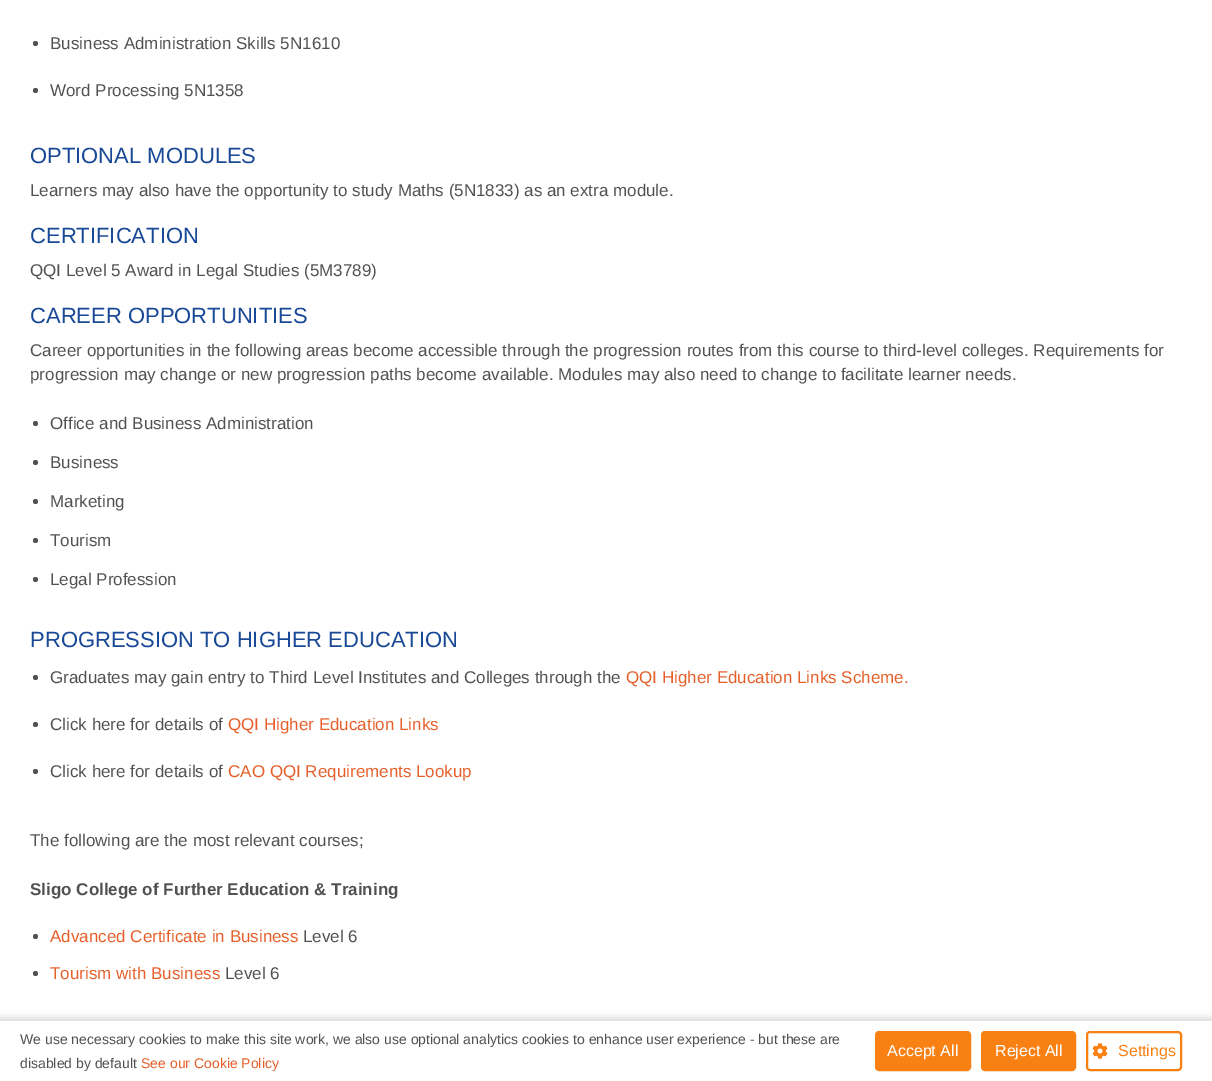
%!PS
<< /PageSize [1212 1081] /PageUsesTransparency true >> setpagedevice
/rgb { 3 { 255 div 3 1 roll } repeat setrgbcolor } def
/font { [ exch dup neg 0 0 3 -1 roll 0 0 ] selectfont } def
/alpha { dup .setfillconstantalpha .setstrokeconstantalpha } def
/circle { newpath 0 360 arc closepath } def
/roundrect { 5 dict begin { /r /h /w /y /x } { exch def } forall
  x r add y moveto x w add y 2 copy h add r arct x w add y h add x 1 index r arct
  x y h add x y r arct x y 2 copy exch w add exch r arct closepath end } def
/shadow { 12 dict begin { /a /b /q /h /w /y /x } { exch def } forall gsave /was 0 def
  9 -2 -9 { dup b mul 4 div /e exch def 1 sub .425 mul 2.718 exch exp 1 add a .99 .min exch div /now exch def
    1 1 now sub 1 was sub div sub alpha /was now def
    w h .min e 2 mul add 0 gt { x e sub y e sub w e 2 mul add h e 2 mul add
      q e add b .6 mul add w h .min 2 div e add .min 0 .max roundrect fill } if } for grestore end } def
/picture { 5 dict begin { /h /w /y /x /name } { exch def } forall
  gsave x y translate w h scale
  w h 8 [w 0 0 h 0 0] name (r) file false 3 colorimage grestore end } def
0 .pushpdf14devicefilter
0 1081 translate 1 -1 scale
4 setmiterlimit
255 255 255 rgb
0 0 1212 1081 rectfill
82 81 81 rgb
35.5 43.5 2.5 circle fill
35.5 90.5 2.5 circle fill
35.5 423.5 2.5 circle fill
35.5 462.5 2.5 circle fill
35.5 501.5 2.5 circle fill
35.5 540.5 2.5 circle fill
35.5 579.5 2.5 circle fill
35.5 677.5 2.5 circle fill
35.5 724.5 2.5 circle fill
35.5 771.5 2.5 circle fill
35.5 936.5 2.5 circle fill
35.5 973.5 2.5 circle fill
0 0 0 rgb
0 1018 1212 60 0 4 0.16 shadow
255 255 255 rgb
0 1021 1212 60 rectfill
249 128 18 rgb
876 1032 94 38 3 roundrect gsave fill grestore
2 setlinewidth
stroke
982 1032 93 38 3 roundrect gsave fill grestore
stroke
1087 1032 94 38 3 roundrect stroke
(img/1.rgb) 1092 1043 16 16 picture
/LiberationSans-Regular 17 font
82 81 81 rgb
50 49 moveto (Business Administration Skills 5N1610) show
50 96 moveto (Word Processing 5N1358) show
/LiberationSans-Regular 22 font
24 72 150 rgb
30 163 moveto (OPTIONAL MODULES) show
/LiberationSans-Regular 17 font
82 81 81 rgb
30 196 moveto (Learners may also have the opportunity to study Maths \(5N1833\) as an extra module.) show
/LiberationSans-Regular 22 font
24 72 150 rgb
30 243 moveto (CERTIFICATION) show
/LiberationSans-Regular 17 font
82 81 81 rgb
30 276 moveto (QQI Level 5 Award in Legal Studies \(5M3789\)) show
/LiberationSans-Regular 22 font
24 72 150 rgb
30 323 moveto (CAREER OPPORTUNITIES) show
/LiberationSans-Regular 17 font
82 81 81 rgb
[
  [(Career opportunities in the following areas become accessible through the progression routes from this course to third-level colleges. Requirements for) 30 356]
  [(progression may change or new progression paths become available. Modules may also need to change to facilitate learner needs.) 30 380]
  [(Office and Business Administration) 50 429]
  [(Business) 50 468]
  [(Marketing) 50 507]
  [(Tourism) 50 546]
  [(Legal Profession) 50 585]
] { aload pop moveto show } forall
/LiberationSans-Regular 22 font
24 72 150 rgb
30 647 moveto (PROGRESSION TO HIGHER EDUCATION) show
/LiberationSans-Regular 17 font
82 81 81 rgb
50 683 moveto (Graduates may gain entry to Third Level Institutes and Colleges through the) show
228 95 42 rgb
626 683 moveto (QQI Higher Education Links Scheme.) show
82 81 81 rgb
50 730 moveto (Click here for details of) show
228 95 42 rgb
228 730 moveto (QQI Higher Education Links) show
82 81 81 rgb
50 777 moveto (Click here for details of) show
228 95 42 rgb
228 777 moveto (CAO QQI Requirements Lookup) show
82 81 81 rgb
30 846 moveto (The following are the most relevant courses;) show
/LiberationSans-Bold 17 font
30 895 moveto (Sligo College of Further Education & Training) show
/LiberationSans-Regular 17 font
228 95 42 rgb
50 942 moveto (Advanced Certificate in Business) show
82 81 81 rgb
303 942 moveto (Level 6) show
228 95 42 rgb
50 979 moveto (Tourism with Business) show
82 81 81 rgb
225 979 moveto (Level 6) show
/LiberationSans-Regular 14 font
20 1044 moveto (We use necessary cookies to make this site work, we also use optional analytics cookies to enhance user experience - but these are) show
20 1068 moveto (disabled by default) show
228 95 42 rgb
141 1068 moveto (See our Cookie Policy) show
/LiberationSans-Regular 16 font
255 255 255 rgb
887 1056 moveto (Accept All) show
995 1056 moveto (Reject All) show
249 128 18 rgb
1118 1056 moveto (Settings) show
.poppdf14devicefilter showpage
